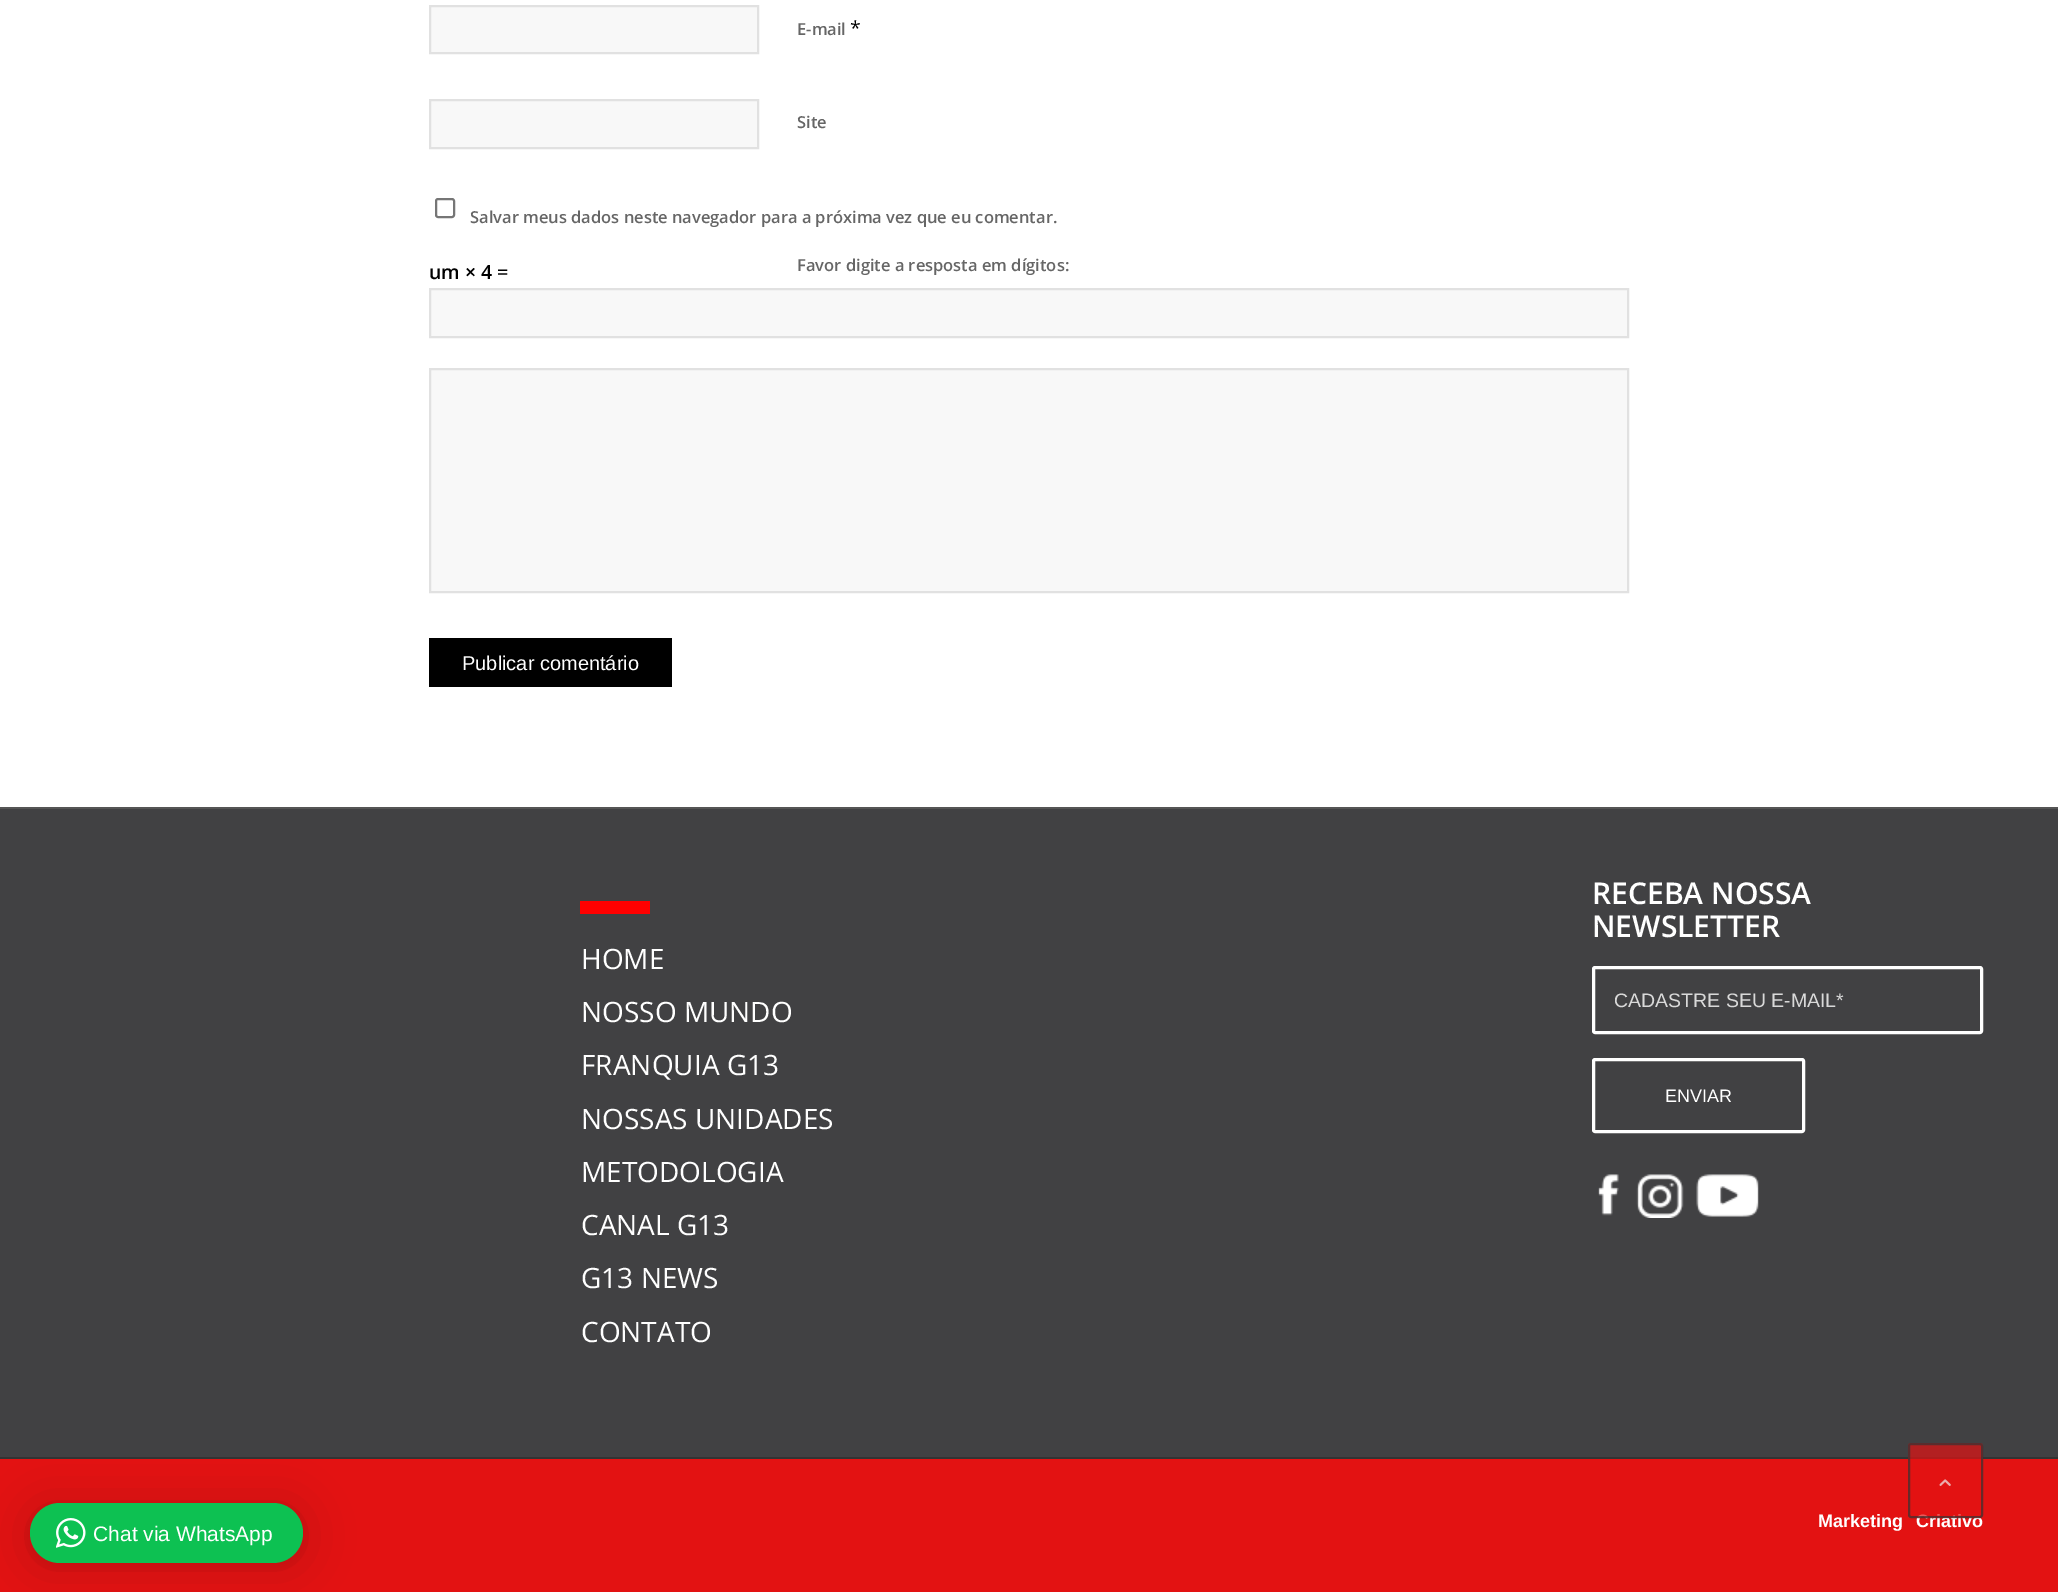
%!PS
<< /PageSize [2058 1592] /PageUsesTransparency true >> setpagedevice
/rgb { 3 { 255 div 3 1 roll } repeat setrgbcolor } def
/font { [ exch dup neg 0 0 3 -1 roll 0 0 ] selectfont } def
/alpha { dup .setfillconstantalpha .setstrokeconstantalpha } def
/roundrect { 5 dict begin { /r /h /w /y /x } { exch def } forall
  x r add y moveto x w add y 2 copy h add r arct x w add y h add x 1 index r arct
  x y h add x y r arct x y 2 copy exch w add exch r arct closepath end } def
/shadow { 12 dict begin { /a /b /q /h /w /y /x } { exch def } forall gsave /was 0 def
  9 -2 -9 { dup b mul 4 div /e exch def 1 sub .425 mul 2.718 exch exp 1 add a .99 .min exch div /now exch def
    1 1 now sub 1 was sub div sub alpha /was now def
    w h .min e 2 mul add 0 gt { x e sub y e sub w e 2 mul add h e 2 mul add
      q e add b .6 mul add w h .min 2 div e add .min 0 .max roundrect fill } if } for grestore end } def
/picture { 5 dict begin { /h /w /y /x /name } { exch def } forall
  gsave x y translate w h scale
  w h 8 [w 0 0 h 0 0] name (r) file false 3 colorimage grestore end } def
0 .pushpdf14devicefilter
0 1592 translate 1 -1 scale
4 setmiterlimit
255 255 255 rgb
0 0 2058 1592 rectfill
248 248 248 rgb
430 6 moveto 758 6 lineto 758 53 lineto 430 53 lineto closepath gsave fill grestore
225 225 225 rgb
2 setlinewidth
stroke
248 248 248 rgb
430 100 moveto 758 100 lineto 758 148 lineto 430 148 lineto closepath gsave fill grestore
225 225 225 rgb
stroke
118 118 118 rgb
436 199 18 18 2 roundrect stroke
248 248 248 rgb
430 289 moveto 1628 289 lineto 1628 337 lineto 430 337 lineto closepath gsave fill grestore
225 225 225 rgb
stroke
248 248 248 rgb
430 369 moveto 1628 369 lineto 1628 592 lineto 430 592 lineto closepath gsave fill grestore
225 225 225 rgb
stroke
[
  [429 638 243 49 0 0 0]
  [0 809 2058 648 65 65 67]
  [0 807 2058 2 85 85 85]
  [580 901 70 13 255 0 0]
] { aload pop rgb rectfill } forall
255 255 255 rgb
3 setlinewidth
1593.5 967.5 388 65 1.5 roundrect stroke
1593.5 1059.5 210 72 1.5 roundrect stroke
(img/1.rgb) 1598 1174 21 42 picture
(img/2.rgb) 1636 1174 48 44 picture
(img/3.rgb) 1696 1174 63 43 picture
227 18 18 rgb
0 1459 2058 133 rectfill
51 51 51 rgb
0 1457 2058 2 rectfill
0 0 0 rgb
30 1506 273 60 30 24 0.16 shadow
30 1505 273 60 30 4.5 0.06 shadow
13 193 82 rgb
30 1503 273 60 30 roundrect fill
(img/5.rgb) 56 1518 30 30 picture
/OpenSans-SemiBold 16.5 font
102 102 102 rgb
797 35 moveto (E-mail) show
/OpenSans-Regular 19.5 font
0 0 0 rgb
850 35 moveto (*) show
/OpenSans-SemiBold 16.5 font
102 102 102 rgb
797 128 moveto (Site) show
470 223 moveto (Salvar meus dados neste navegador para a próxima vez que eu comentar.) show
/OpenSans-SemiBold 19.5 font
0 0 0 rgb
429 279 moveto (um × 4 =) show
/OpenSans-SemiBold 16.5 font
102 102 102 rgb
797 271 moveto (Favor digite a resposta em dígitos:) show
/LiberationSans-Regular 20 font
255 255 255 rgb
462 670 moveto (Publicar comentário) show
/OpenSans-Regular 28 font
[
  [(HOME) 581 969]
  [(NOSSO MUNDO) 581 1022]
  [(FRANQUIA G13) 581 1075]
  [(NOSSAS UNIDADES) 581 1129]
  [(METODOLOGIA) 581 1182]
  [(CANAL G13) 581 1235]
  [(G13 NEWS) 581 1288]
  [(CONTATO) 581 1342]
] { aload pop moveto show } forall
/OpenSans-SemiBold 30 font
1592 904 moveto (RECEBA NOSSA) show
1592 937 moveto (NEWSLETTER) show
/LiberationSans-Regular 19.5 font
217 217 217 rgb
1614 1007 moveto (CADASTRE SEU E-MAIL*) show
/LiberationSans-Regular 18 font
255 255 255 rgb
1665 1102 moveto (ENVIAR) show
/LiberationSans-Bold 18 font
1818 1527 moveto (Marketing) show
1916 1527 moveto (Criativo) show
0.7 alpha
227 18 18 rgb
1908 1443 75 75 3 roundrect fill
51 51 51 rgb
2 setlinewidth
1909 1444 73 73 2 roundrect stroke
1 alpha
(img/4.rgb) 1939 1479 12 7 picture
/LiberationSans-Regular 21 font
255 255 255 rgb
93 1541 moveto (Chat via WhatsApp) show
.poppdf14devicefilter showpage
